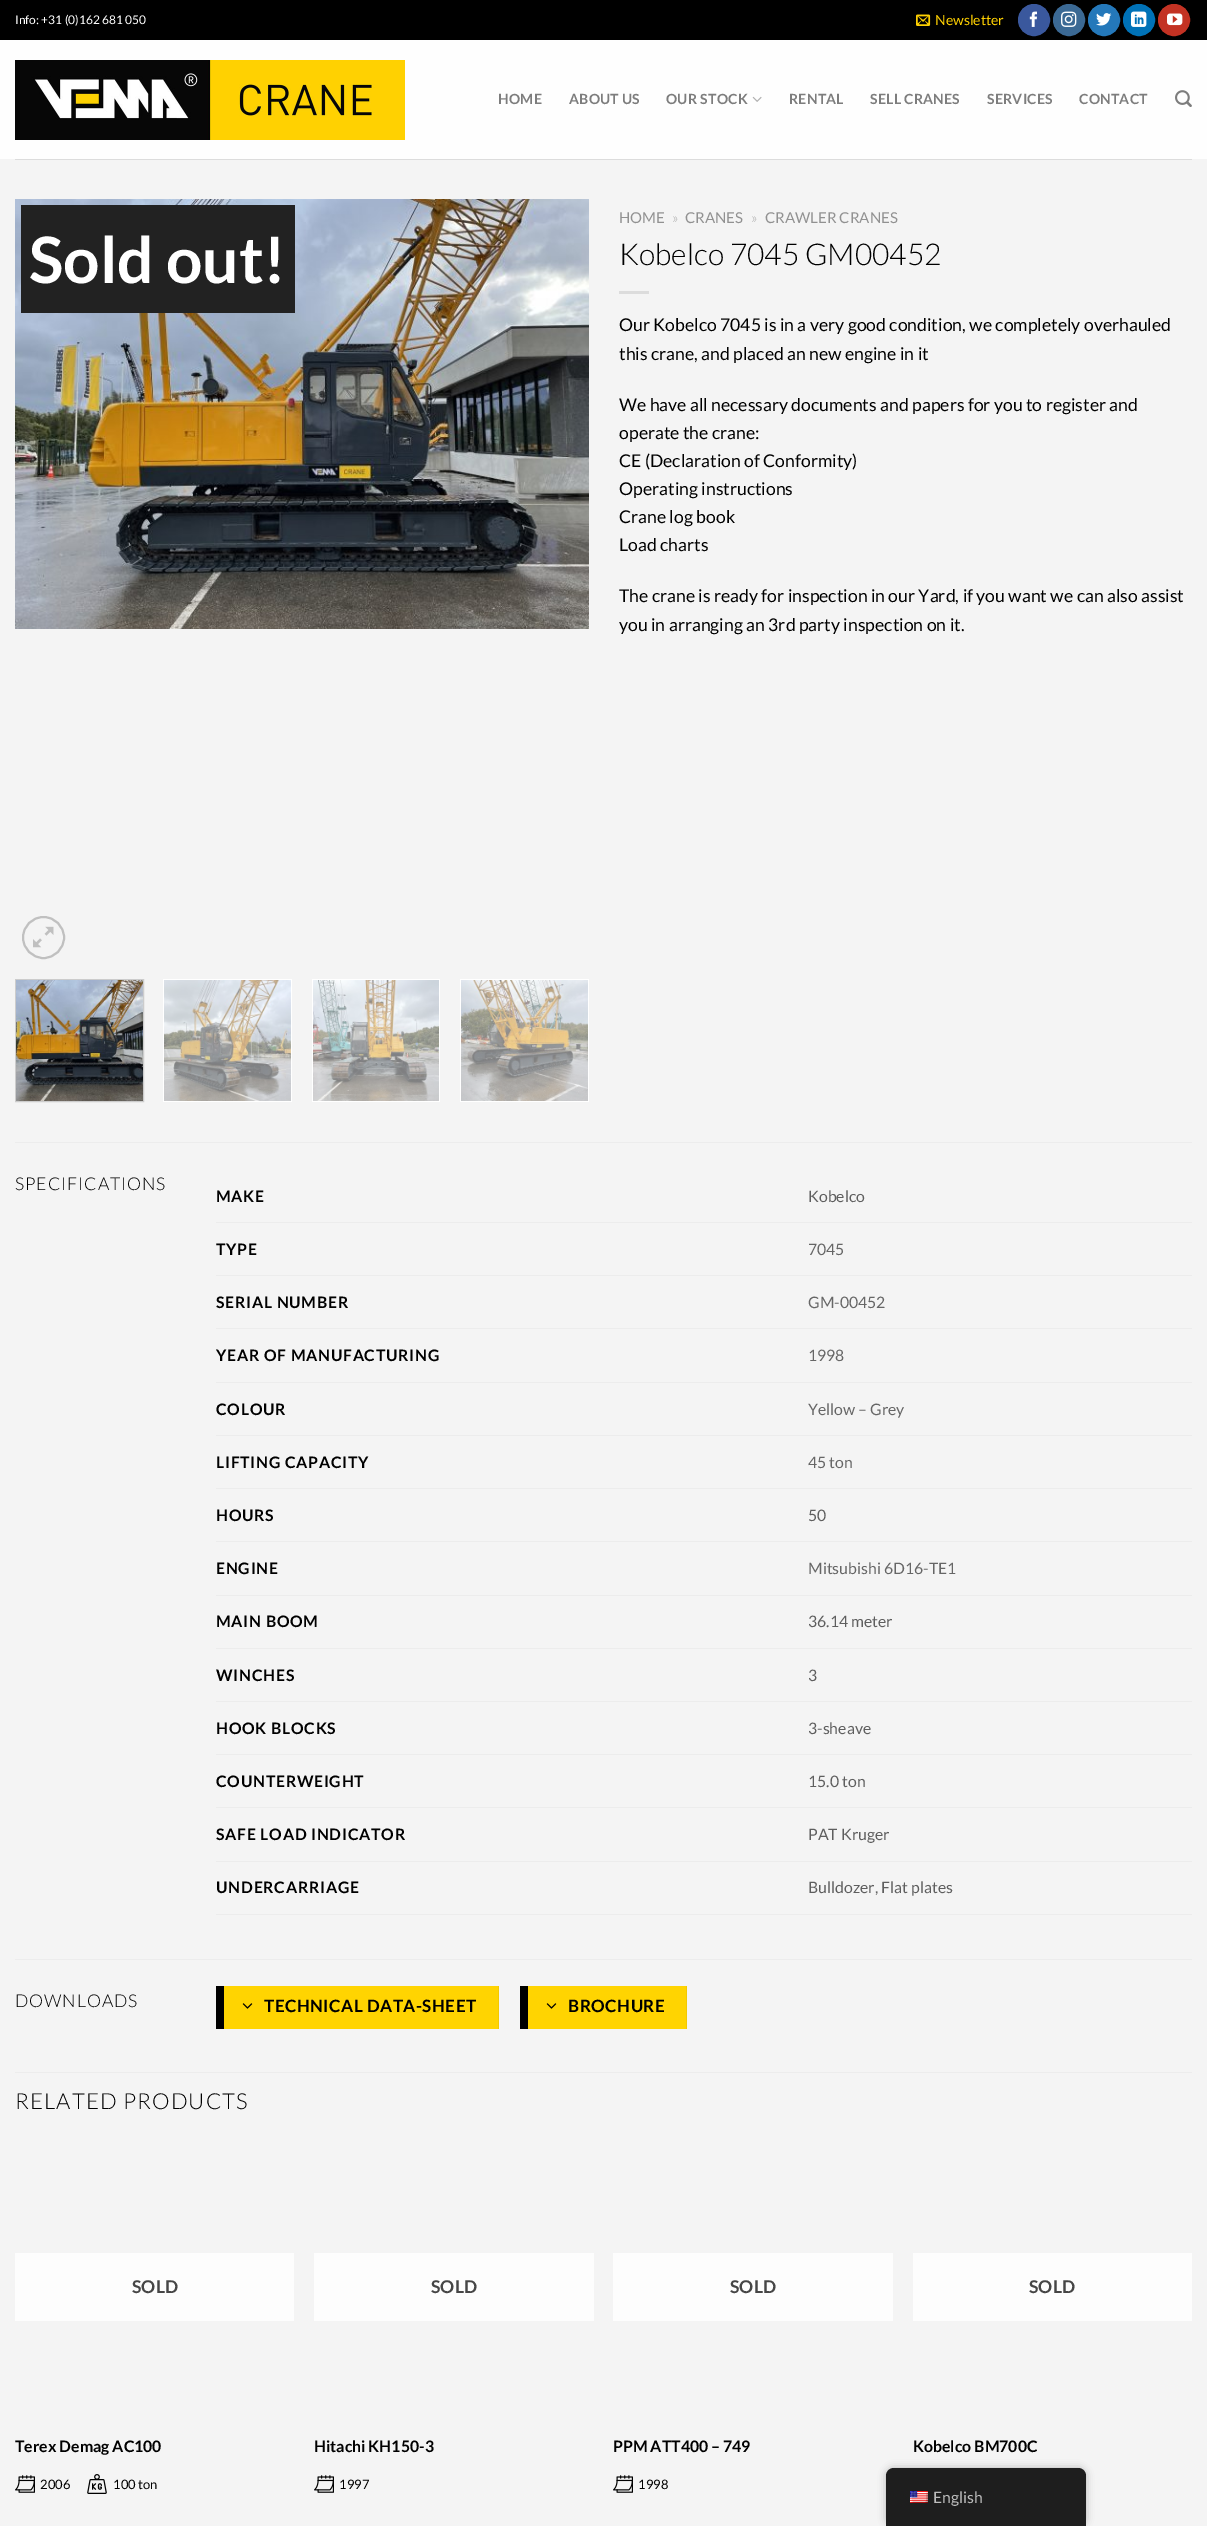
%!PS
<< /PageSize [1207 2526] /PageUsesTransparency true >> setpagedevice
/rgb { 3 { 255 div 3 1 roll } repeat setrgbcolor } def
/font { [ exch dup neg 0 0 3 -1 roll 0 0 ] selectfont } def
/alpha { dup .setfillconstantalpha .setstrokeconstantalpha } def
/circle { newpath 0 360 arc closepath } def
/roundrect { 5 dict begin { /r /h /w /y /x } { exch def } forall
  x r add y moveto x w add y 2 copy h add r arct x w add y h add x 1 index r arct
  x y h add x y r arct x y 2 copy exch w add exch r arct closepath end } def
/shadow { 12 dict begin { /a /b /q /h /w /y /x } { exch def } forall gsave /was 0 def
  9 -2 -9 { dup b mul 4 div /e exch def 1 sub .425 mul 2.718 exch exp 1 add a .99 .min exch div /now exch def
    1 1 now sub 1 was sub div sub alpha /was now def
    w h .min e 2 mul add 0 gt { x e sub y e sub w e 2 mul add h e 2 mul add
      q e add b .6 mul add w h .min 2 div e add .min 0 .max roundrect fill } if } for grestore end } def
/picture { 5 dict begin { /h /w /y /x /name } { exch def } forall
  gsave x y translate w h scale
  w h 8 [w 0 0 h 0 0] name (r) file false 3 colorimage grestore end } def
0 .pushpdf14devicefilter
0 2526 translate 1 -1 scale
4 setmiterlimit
244 244 244 rgb
0 0 1207 2526 rectfill
0 0 0 rgb
0 0 1207 40 rectfill
(img/1.rgb) 916 14 15 12 picture
58 88 157 rgb
1034 20 15.5 circle gsave fill grestore
stroke
(img/2.rgb) 1029 11 8 16 picture
59 105 148 rgb
1069 20 15.5 circle gsave fill grestore
stroke
(img/3.rgb) 1061 11 16 16 picture
36 120 186 rgb
1104 20 15.5 circle gsave fill grestore
stroke
(img/4.rgb) 1096 13 16 13 picture
0 114 183 rgb
1139 20 15.5 circle gsave fill grestore
stroke
(img/5.rgb) 1131 11 16 16 picture
195 50 35 rgb
1174 20 15.5 circle gsave fill grestore
stroke
(img/6.rgb) 1167 13 16 13 picture
254 254 254 rgb
0 40 1207 119 rectfill
(img/7.rgb) 15 60 390 80 picture
(img/8.rgb) 752 96 10 6 picture
(img/9.rgb) 1175 90 17 17 picture
220 220 220 rgb
15 159 1177 1 rectfill
(img/10.rgb) 15 199 574 430 picture
34 34 34 rgb
21 205 274 108 rectfill
192 192 192 rgb
2 setlinewidth
43.5 937.5 20.5 circle stroke
(img/11.rgb) 33 926 21 22 picture
204 204 204 rgb
1 setlinewidth
15.5 979.5 128 122 rectstroke
(img/12.rgb) 16 980 127 121 picture
255 255 255 rgb
163 979 129 123 rectfill
(img/13.rgb) 164 980 127 121 picture
312 979 128 123 rectfill
(img/14.rgb) 313 980 126 121 picture
460 979 129 123 rectfill
(img/15.rgb) 461 980 127 121 picture
[
  [619 291 30 3 220 220 220]
  [15 1142 1177 1 236 236 236]
  [216 1222 976 1 236 236 236]
  [216 1275 976 1 236 236 236]
  [216 1328 976 1 236 236 236]
  [216 1382 976 1 236 236 236]
  [216 1435 976 1 236 236 236]
  [216 1488 976 1 236 236 236]
  [216 1541 976 1 236 236 236]
  [216 1595 976 1 236 236 236]
  [216 1648 976 1 236 236 236]
  [216 1701 976 1 236 236 236]
  [216 1754 976 1 236 236 236]
  [216 1807 976 1 236 236 236]
  [216 1861 976 1 236 236 236]
  [216 1914 976 1 236 236 236]
  [15 1959 1177 1 236 236 236]
  [224 1986 274 43 255 212 1]
  [498 1986 1 43 242 201 1]
  [216 1986 8 43 0 0 0]
] { aload pop rgb rectfill } forall
(img/16.rgb) 242 2003 11 6 picture
[
  [528 1986 158 43 255 212 1]
  [686 1986 1 43 242 201 1]
  [520 1986 8 43 0 0 0]
] { aload pop rgb rectfill } forall
(img/16.rgb) 546 2003 11 6 picture
236 236 236 rgb
15 2072 1177 1 rectfill
253 253 253 rgb
15 2253 279 68 rectfill
(img/17.rgb) 15 2475 20 18 picture
(img/18.rgb) 87 2474 20 20 picture
314 2253 280 68 rectfill
(img/17.rgb) 314 2475 20 18 picture
613 2253 280 68 rectfill
(img/17.rgb) 613 2475 20 18 picture
913 2253 279 68 rectfill
0 0 0 rgb
886 2468 200 58 8 4 0.25 shadow
30 30 30 rgb
894 2468 moveto 1078 2468 lineto 1082.5 2468 1086 2471.5 1086 2476 curveto 1086 2526 lineto 886 2526 lineto 886 2476 lineto 886 2471.5 889.5 2468 894 2468 curveto closepath fill
(img/19.rgb) 910 2491 18 12 picture
/Lato-Regular 12 font
255 255 255 rgb
15 24 moveto (Info: +31 \(0\)162 681 050) show
/Lato-Regular 14 font
255 209 1 rgb
935 25 moveto (Newsletter) show
/Lato-Bold 14 font
125 125 125 rgb
498 104 moveto 0.25 0 (HOME) ashow
569 104 moveto 0.25 0 (ABOUT US) ashow
666 104 moveto 0.25 0 (OUR STOCK) ashow
789 104 moveto 0.25 0 (RENTAL) ashow
870 104 moveto 0.25 0 (SELL CRANES) ashow
987 104 moveto 0.25 0 (SERVICES) ashow
1079 104 moveto 0.25 0 (CONTACT) ashow
/Lato-Bold 64 font
255 255 255 rgb
29 283 moveto (Sold out!) show
/Lato-Regular 15 font
145 145 145 rgb
619 223 moveto (HOME) show
/Lato-Light 15 font
170 170 170 rgb
672 223 moveto (») show
/Lato-Regular 15 font
145 145 145 rgb
685 223 moveto (CRANES) show
/Lato-Light 15 font
170 170 170 rgb
751 223 moveto (») show
/Lato-Regular 15 font
145 145 145 rgb
765 223 moveto (CRAWLER CRANES) show
/Lato-Light 30 font
0 0 0 rgb
619 265 moveto (Kobelco 7045 GM00452) show
/Lato-Regular 17.6 font
[
  [(Our Kobelco 7045 is in a very good condition, we completely overhauled) 619 331]
  [(this crane, and placed an new engine in it) 619 360]
  [(We have all necessary documents and papers for you to register and) 619 411]
  [(operate the crane:) 619 439]
  [(CE \(Declaration of Conformity\)) 619 467]
  [(Operating instructions) 619 495]
  [(Crane log book) 619 523]
  [(Load charts) 619 551]
  [(The crane is ready for inspection in our Yard, if you want we can also assist) 619 602]
  [(you in arranging an 3rd party inspection on it.) 619 631]
] { aload pop moveto show } forall
/Lato-Light 17.6 font
15 1190 moveto 0.9 0 (SPECIFICATIONS) ashow
/Lato-Bold 15.8 font
216 1202 moveto 0.75 0 (MAKE) ashow
/Lato-Regular 15.8 font
94 94 94 rgb
808 1202 moveto (Kobelco) show
/Lato-Bold 15.8 font
0 0 0 rgb
216 1255 moveto 0.75 0 (TYPE) ashow
/Lato-Regular 15.8 font
102 102 102 rgb
808 1255 moveto (7045) show
/Lato-Bold 15.8 font
0 0 0 rgb
216 1308 moveto 0.75 0 (SERIAL NUMBER) ashow
/Lato-Regular 15.8 font
102 102 102 rgb
808 1308 moveto (GM-00452) show
/Lato-Bold 15.8 font
0 0 0 rgb
216 1361 moveto 0.75 0 (YEAR OF MANUFACTURING) ashow
/Lato-Regular 15.8 font
102 102 102 rgb
808 1361 moveto (1998) show
/Lato-Bold 15.8 font
0 0 0 rgb
216 1415 moveto 0.75 0 (COLOUR) ashow
/Lato-Regular 15.8 font
102 102 102 rgb
808 1415 moveto (Yellow – Grey) show
/Lato-Bold 15.8 font
0 0 0 rgb
216 1468 moveto 0.75 0 (LIFTING CAPACITY) ashow
/Lato-Regular 15.8 font
102 102 102 rgb
808 1468 moveto (45 ton) show
/Lato-Bold 15.8 font
0 0 0 rgb
216 1521 moveto 0.75 0 (HOURS) ashow
/Lato-Regular 15.8 font
94 94 94 rgb
808 1521 moveto (50) show
/Lato-Bold 15.8 font
0 0 0 rgb
216 1574 moveto 0.75 0 (ENGINE) ashow
/Lato-Regular 15.8 font
102 102 102 rgb
808 1574 moveto (Mitsubishi 6D16-TE1) show
/Lato-Bold 15.8 font
0 0 0 rgb
216 1627 moveto 0.75 0 (MAIN BOOM) ashow
/Lato-Regular 15.8 font
94 94 94 rgb
808 1627 moveto (36.14 meter) show
/Lato-Bold 15.8 font
0 0 0 rgb
216 1681 moveto 0.75 0 (WINCHES) ashow
/Lato-Regular 15.8 font
94 94 94 rgb
808 1681 moveto (3) show
/Lato-Bold 15.8 font
0 0 0 rgb
216 1734 moveto 0.75 0 (HOOK BLOCKS) ashow
/Lato-Regular 15.8 font
94 94 94 rgb
808 1734 moveto (3-sheave) show
/Lato-Bold 15.8 font
0 0 0 rgb
216 1787 moveto 0.75 0 (COUNTERWEIGHT) ashow
/Lato-Regular 15.8 font
94 94 94 rgb
808 1787 moveto (15.0 ton) show
/Lato-Bold 15.8 font
0 0 0 rgb
216 1840 moveto 0.75 0 (SAFE LOAD INDICATOR) ashow
/Lato-Regular 15.8 font
94 94 94 rgb
808 1840 moveto (PAT Kruger) show
/Lato-Bold 15.8 font
0 0 0 rgb
216 1893 moveto 0.75 0 (UNDERCARRIAGE) ashow
/Lato-Regular 15.8 font
94 94 94 rgb
808 1893 moveto (Bulldozer) show
102 102 102 rgb
875 1893 moveto (,) show
94 94 94 rgb
881 1893 moveto (Flat plates) show
/Lato-Light 17.6 font
0 0 0 rgb
15 2007 moveto 0.9 0 (DOWNLOADS) ashow
/Lato-Bold 17 font
264 2012 moveto 0.5 0 (TECHNICAL DATA-SHEET) ashow
568 2012 moveto 0.5 0 (BROCHURE) ashow
/Lato-Light 22 font
15 2109 moveto 1.1 0 (RELATED PRODUCTS) ashow
/Lato-Bold 17.6 font
70 70 70 rgb
132 2293 moveto (SOLD) show
/Lato-Bold 15.8 font
0 0 0 rgb
15 2452 moveto (Terex Demag AC100) show
/Lato-Regular 13 font
40 2489 moveto (2006) show
113 2489 moveto (100 ton) show
/Lato-Bold 17.6 font
70 70 70 rgb
431 2293 moveto (SOLD) show
/Lato-Bold 15.8 font
0 0 0 rgb
314 2452 moveto (Hitachi KH150-3) show
/Lato-Regular 13 font
339 2489 moveto (1997) show
/Lato-Bold 17.6 font
70 70 70 rgb
730 2293 moveto (SOLD) show
/Lato-Bold 15.8 font
0 0 0 rgb
613 2452 moveto (PPM ATT400 – 749) show
/Lato-Regular 13 font
638 2489 moveto (1998) show
/Lato-Bold 17.6 font
70 70 70 rgb
1029 2293 moveto (SOLD) show
/Lato-Bold 15.8 font
0 0 0 rgb
913 2452 moveto (Kobelco BM700C) show
/Lato-Regular 15.8 font
189 189 189 rgb
933 2503 moveto (English) show
.poppdf14devicefilter showpage
